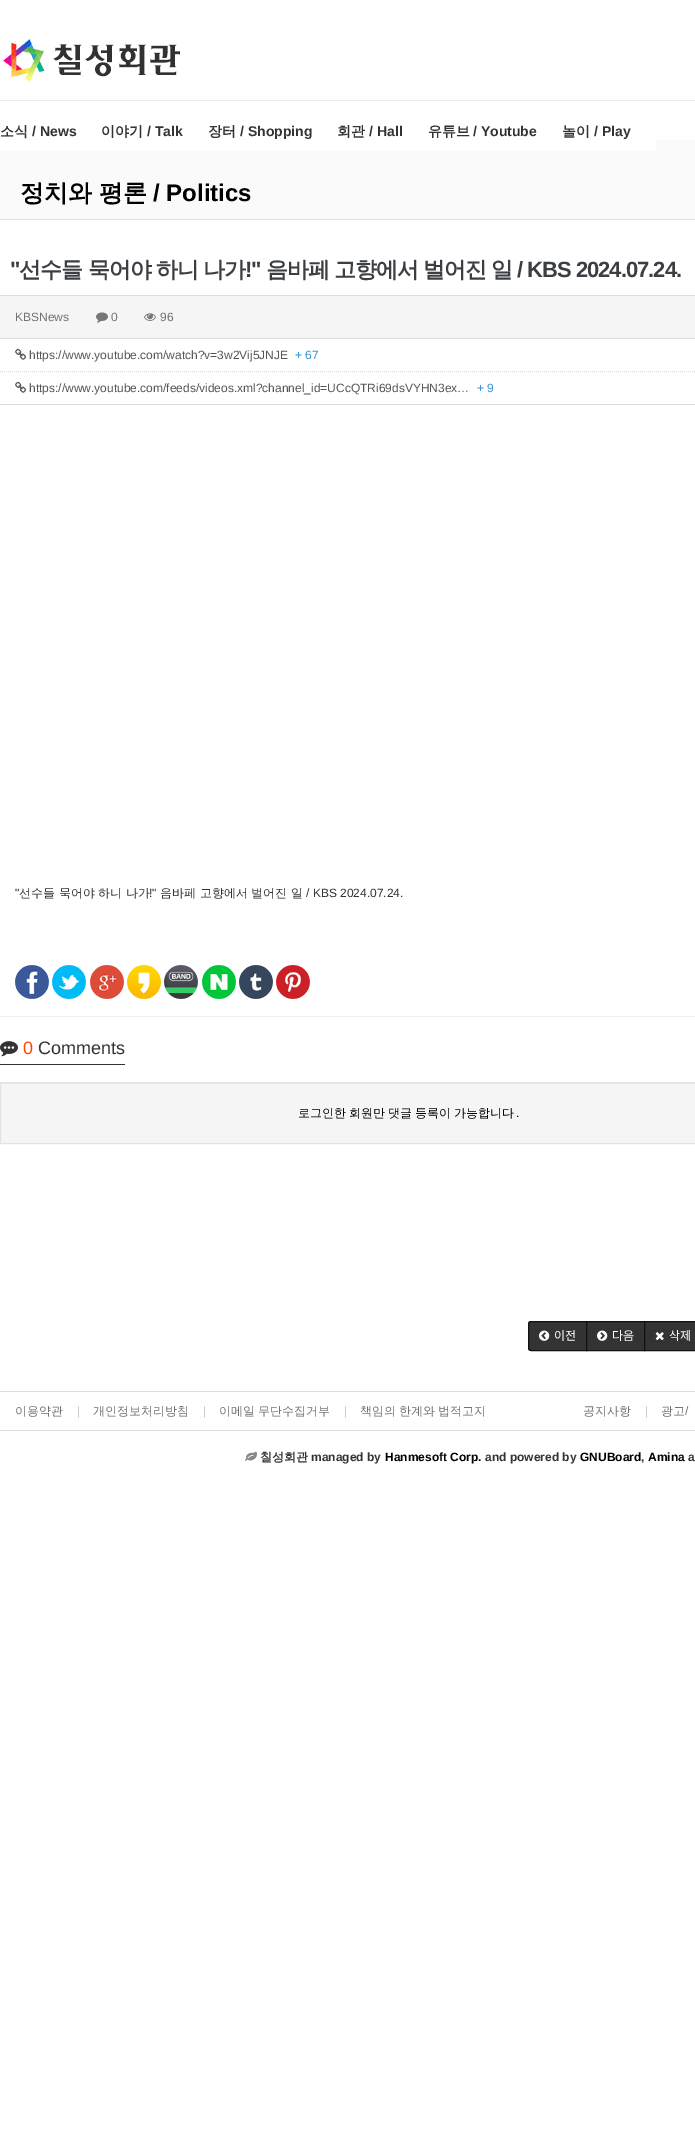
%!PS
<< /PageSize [695 2140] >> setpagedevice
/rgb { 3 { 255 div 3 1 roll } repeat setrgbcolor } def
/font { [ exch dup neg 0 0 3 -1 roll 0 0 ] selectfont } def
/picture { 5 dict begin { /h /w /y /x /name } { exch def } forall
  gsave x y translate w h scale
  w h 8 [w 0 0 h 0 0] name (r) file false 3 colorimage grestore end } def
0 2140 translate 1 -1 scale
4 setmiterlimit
255 255 255 rgb
0 0 695 2140 rectfill
(img/1.rgb) 3 39 177 43 picture
[
  [0 100 695 1 235 235 235]
  [0 140 695 79 250 250 250]
  [0 140 656 11 255 255 255]
  [0 219 695 1 223 223 223]
  [0 295 695 1 221 221 221]
  [0 404 695 1 221 221 221]
  [0 296 695 42 245 245 245]
  [0 338 695 1 221 221 221]
] { aload pop rgb rectfill } forall
(img/2.rgb) 96 312 12 11 picture
(img/3.rgb) 144 313 12 8 picture
(img/4.rgb) 15 348 11 12 picture
[1 1] 0 setdash
0 371.5 moveto 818 371.5 lineto stroke
(img/4.rgb) 15 381 11 12 picture
(img/5.rgb) 15 965 34 34 picture
(img/6.rgb) 52 965 34 34 picture
(img/7.rgb) 90 965 34 34 picture
(img/8.rgb) 127 965 34 34 picture
(img/9.rgb) 164 965 34 34 picture
(img/10.rgb) 202 965 34 34 picture
(img/11.rgb) 239 965 34 34 picture
(img/12.rgb) 276 965 34 34 picture
238 238 238 rgb
0 1016 695 1 rectfill
51 51 51 rgb
0 1064 125 1 rectfill
(img/13.rgb) 0 1041 18 16 picture
245 245 245 rgb
1 1084 694 59 rectfill
233 233 233 rgb
1 1083 694 1 rectfill
227 227 227 rgb
[] 0 setdash
0.5 1082.5 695 61 rectstroke
51 51 51 rgb
531 1321.5 moveto 586.5 1321.5 lineto 586.5 1350.5 lineto 531 1350.5 lineto 529.5 1350.5 528.5 1349.5 528.5 1348 curveto 528.5 1324 lineto 528.5 1322.5 529.5 1321.5 531 1321.5 curveto closepath gsave fill grestore
17 17 17 rgb
stroke
(img/14.rgb) 539 1330 11 11 picture
51 51 51 rgb
586.5 1321.5 moveto 644.5 1321.5 lineto 644.5 1350.5 lineto 586.5 1350.5 lineto closepath gsave fill grestore
17 17 17 rgb
stroke
(img/15.rgb) 597 1330 11 11 picture
51 51 51 rgb
644.5 1321.5 moveto 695.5 1321.5 lineto 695.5 1350.5 lineto 644.5 1350.5 lineto closepath gsave fill grestore
17 17 17 rgb
stroke
(img/16.rgb) 655 1332 9 9 picture
221 221 221 rgb
0 1391 695 1 rectfill
0 1430 695 1 rectfill
(img/17.rgb) 245 1451 12 10 picture
/WenQuanYiZenHei-Bold 14 font
51 51 51 rgb
0 136 moveto (소식) show
/LiberationSans-Bold 14 font
32 136 moveto (/ News) show
/WenQuanYiZenHei-Bold 14 font
101 136 moveto (이야기) show
/LiberationSans-Bold 14 font
147 136 moveto (/ Talk) show
/WenQuanYiZenHei-Bold 14 font
208 136 moveto (장터) show
/LiberationSans-Bold 14 font
240 136 moveto (/ Shopping) show
/WenQuanYiZenHei-Bold 14 font
337 136 moveto (회관) show
/LiberationSans-Bold 14 font
369 136 moveto (/ Hall) show
/WenQuanYiZenHei-Bold 14 font
428 136 moveto (유튜브) show
/LiberationSans-Bold 14 font
473 136 moveto (/ Youtube) show
/WenQuanYiZenHei-Bold 14 font
562 136 moveto (놀이) show
/LiberationSans-Bold 14 font
594 136 moveto (/ Play) show
/WenQuanYiZenHei-Bold 24 font
0 0 0 rgb
20 201 moveto (정치와) show
99 201 moveto (평론) show
/LiberationSans-Bold 24 font
153 201 moveto (/ Politics) show
/LiberationSans-Bold 22 font
59 62 67 rgb
10 277 moveto -1 0 (") ashow
/WenQuanYiZenHei-Bold 22 font
19 277 moveto -1 0 (선수들) ashow
88 277 moveto -1 0 (묵어야) ashow
156 277 moveto -1 0 (하니) ashow
203 277 moveto -1 0 (나가) ashow
/LiberationSans-Bold 22 font
245 277 moveto -1 0 (!") ashow
/WenQuanYiZenHei-Bold 22 font
266 277 moveto -1 0 (음바페) ashow
334 277 moveto -1 0 (고향에서) ashow
423 277 moveto -1 0 (벌어진) ashow
491 277 moveto -1 0 (일) ashow
/LiberationSans-Bold 22 font
517 277 moveto -1 0 (/ KBS 2024.07.24.) ashow
/LiberationSans-Regular 12 font
114 114 114 rgb
[
  [(KBSNews) 15 321]
  [(0) 111 321]
  [(96) 160 321]
] { aload pop moveto show } forall
85 85 85 rgb
29 359 moveto (https://www.youtube.com/watch?v=3w2Vij5JNJE) show
52 152 219 rgb
295 359 moveto (+ 67) show
85 85 85 rgb
29 392 moveto (https://www.youtube.com/feeds/videos.xml?channel_id=UCcQTRi69dsVYHN3ex…) show
52 152 219 rgb
477 392 moveto (+ 9) show
51 51 51 rgb
15 897 moveto (") show
/WenQuanYiZenHei-Medium 12 font
19 897 moveto (선수들 묵어야 하니 나가) show
/LiberationSans-Regular 12 font
149 897 moveto (!") show
/WenQuanYiZenHei-Medium 12 font
160 897 moveto (음바페 고향에서 벌어진 일) show
/LiberationSans-Regular 12 font
306 897 moveto (/ KBS 2024.07.24.) show
/LiberationSans-Regular 18 font
255 69 0 rgb
23 1054 moveto (0) show
51 51 51 rgb
38 1054 moveto (Comments) show
/WenQuanYiZenHei-Medium 12 font
0 0 0 rgb
298 1117 moveto -0.5 0 32 (로그인한 회원만 댓글 등록이 가능합니다) widthshow
/LiberationSans-Regular 12 font
516 1117 moveto (.) show
/NotoSansKR-Regular 12 font
255 255 255 rgb
[
  [(이전) 554 1340]
  [(다음) 612 1340]
  [(삭제) 669 1340]
] { aload pop moveto show } forall
/WenQuanYiZenHei-Medium 12 font
114 114 114 rgb
15 1415 moveto (이용약관) show
/LiberationSans-Regular 12 font
204 204 204 rgb
77 1415 moveto (|) show
/WenQuanYiZenHei-Medium 12 font
114 114 114 rgb
93 1415 moveto (개인정보처리방침) show
/LiberationSans-Regular 12 font
204 204 204 rgb
203 1415 moveto (|) show
/WenQuanYiZenHei-Medium 12 font
114 114 114 rgb
219 1415 moveto -0.5 0 32 (이메일 무단수집거부) widthshow
/LiberationSans-Regular 12 font
204 204 204 rgb
344 1415 moveto (|) show
/WenQuanYiZenHei-Medium 12 font
114 114 114 rgb
360 1415 moveto -0.5 0 32 (책임의 한계와 법적고지) widthshow
583 1415 moveto (공지사항) show
/LiberationSans-Regular 12 font
204 204 204 rgb
645 1415 moveto (|) show
/WenQuanYiZenHei-Medium 12 font
114 114 114 rgb
661 1415 moveto (광고) show
/LiberationSans-Regular 12 font
685 1415 moveto (/) show
/WenQuanYiZenHei-Bold 12 font
51 51 51 rgb
260 1461 moveto (칠성회관) show
/LiberationSans-Bold 12 font
311 1461 moveto (managed by) show
0 0 0 rgb
385 1461 moveto (Hanmesoft Corp.) show
51 51 51 rgb
485 1461 moveto (and powered by) show
0 0 0 rgb
580 1461 moveto (GNUBoard) show
51 51 51 rgb
641 1461 moveto (,) show
0 0 0 rgb
648 1461 moveto (Amina) show
51 51 51 rgb
688 1461 moveto (a) show
showpage
